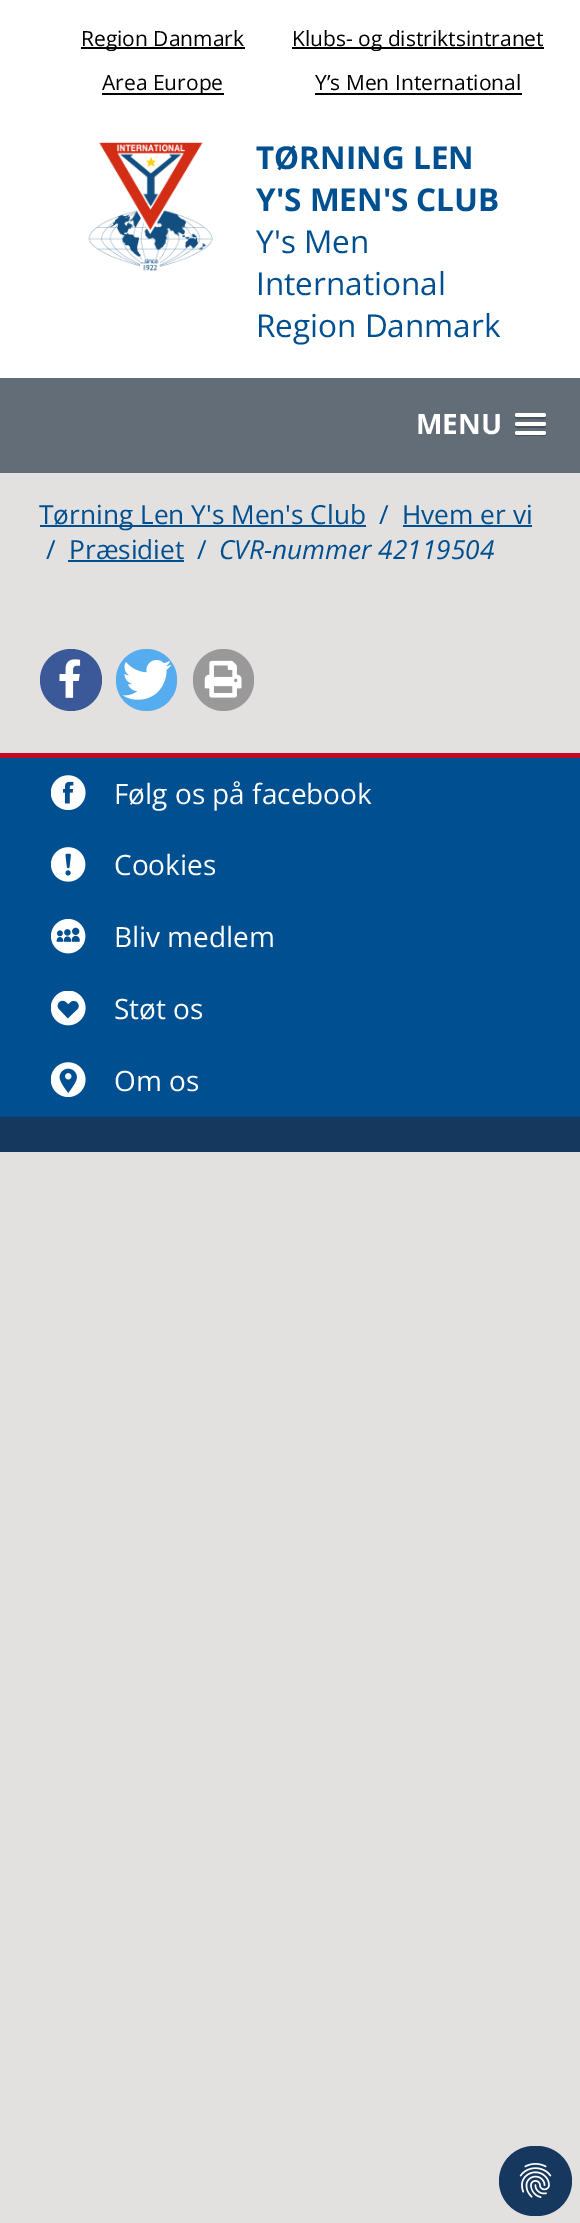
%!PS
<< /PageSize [580 2223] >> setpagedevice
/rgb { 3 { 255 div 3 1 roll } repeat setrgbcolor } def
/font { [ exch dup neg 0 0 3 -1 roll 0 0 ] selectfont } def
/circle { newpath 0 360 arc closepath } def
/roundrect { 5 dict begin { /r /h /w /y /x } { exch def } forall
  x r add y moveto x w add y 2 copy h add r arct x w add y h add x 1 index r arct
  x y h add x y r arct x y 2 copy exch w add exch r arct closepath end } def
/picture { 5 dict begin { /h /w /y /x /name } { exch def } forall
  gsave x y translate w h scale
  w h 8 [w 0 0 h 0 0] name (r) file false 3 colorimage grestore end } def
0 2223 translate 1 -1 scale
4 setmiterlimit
227 224 224 rgb
0 0 580 2223 rectfill
[
  [0 0 580 378 255 255 255]
  [81 47 164 2 0 0 0]
  [292 47 252 2 0 0 0]
  [102 93 122 2 0 0 0]
  [315 93 207 2 0 0 0]
] { aload pop rgb rectfill } forall
(img/1.rgb) 88 142 125 129 picture
98 109 119 rgb
0 378 580 95 rectfill
74 82 89 rgb
515 416 moveto 513.5 420 520.5 419 521.5 419 curveto 539.5 419 lineto 540.5 419 545.5 420 546 417.5 curveto 545.5 416 lineto 544.5 416.5 lineto 542 417 516 417 515 416 curveto closepath fill
255 255 255 rgb
515 413 31 4 2 roundrect fill
74 82 89 rgb
515.5 425 moveto 513 429 521 428 521.5 428 curveto 539.5 428 lineto 540.5 428 545.5 429 546 426.5 curveto 546 426 546 425 545.5 424.5 curveto 544.5 425 lineto 542 425.5 516 425.5 515.5 425 curveto closepath fill
255 255 255 rgb
515 422 31 4 2 roundrect fill
74 82 89 rgb
515 433.5 moveto 514 437 520.5 436 521.5 436 curveto 539.5 436 lineto 540.5 436 547.5 437 546 433 curveto 544.5 434 lineto 516 434 lineto closepath fill
255 255 255 rgb
515 431 31 4 2 roundrect fill
[
  [40 525 326 2 0 80 145]
  [403 525 129 2 0 80 145]
  [68 560 116 2 0 80 145]
] { aload pop rgb rectfill } forall
59 89 152 rgb
71 680 31 circle fill
(img/2.rgb) 59 659 22 39 picture
85 172 238 rgb
116 649 61 62 30.5 roundrect fill
(img/3.rgb) 122 660 50 40 picture
153 153 153 rgb
193 649 61 62 30.5 roundrect fill
(img/4.rgb) 204 660 38 38 picture
[
  [0 758 580 359 0 80 145]
  [0 753 580 5 193 10 39]
  [0 1117 580 35 21 56 94]
] { aload pop rgb rectfill } forall
(img/5.rgb) 51 775 35 35 picture
(img/6.rgb) 51 847 35 35 picture
(img/7.rgb) 51 919 35 35 picture
(img/8.rgb) 51 991 35 35 picture
(img/9.rgb) 51 1062 35 35 picture
22 56 94 rgb
499 2146 73 70 35 roundrect fill
(img/10.rgb) 519 2163 33 35 picture
/OpenSans-Regular 21 font
0 0 0 rgb
[
  [(Region Danmark) 81 46]
  [(Klubs- og distriktsintranet) 292 46]
  [(Area Europe) 102 90]
  [(Y’s Men International) 315 90]
] { aload pop moveto show } forall
/OpenSans-Bold 31.5 font
0 80 145 rgb
256 169 moveto (TØRNING LEN) show
256 211 moveto (Y'S MEN'S CLUB) show
/OpenSans-Regular 31.5 font
[
  [(Y's Men) 256 253]
  [(International) 256 295]
  [(Region Danmark) 256 337]
] { aload pop moveto show } forall
/OpenSans-Bold 28 font
255 255 255 rgb
416 434 moveto (MENU) show
/OpenSans-Regular 26.25 font
0 80 145 rgb
[
  [(Tørning Len Y's Men's Club) 39 524]
  [(/) 379 524]
  [(Hvem er vi) 402 524]
  [(/) 46 559]
  [(Præsidiet) 69 559]
  [(/) 197 559]
] { aload pop moveto show } forall
/OpenSans-Italic 26.25 font
219 559 moveto (CVR-nummer 42119504) show
/OpenSans-Regular 28 font
255 255 255 rgb
[
  [(Følg os på facebook) 114 804]
  [(Cookies) 114 875]
  [(Bliv medlem) 114 947]
  [(Støt os) 114 1019]
  [(Om os) 114 1091]
] { aload pop moveto show } forall
showpage
